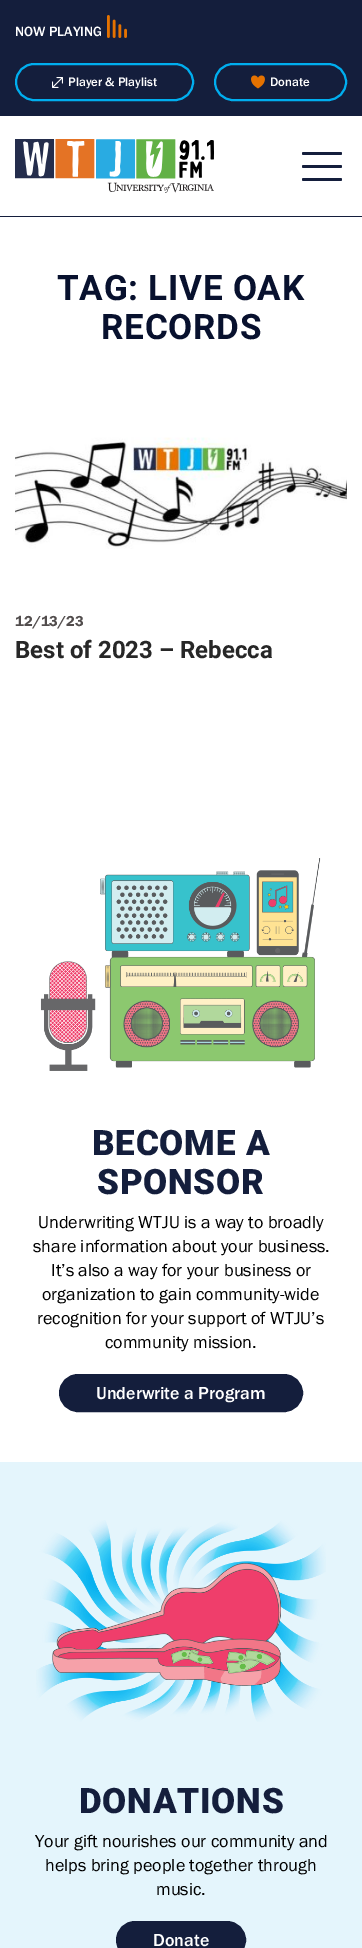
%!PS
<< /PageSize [362 1948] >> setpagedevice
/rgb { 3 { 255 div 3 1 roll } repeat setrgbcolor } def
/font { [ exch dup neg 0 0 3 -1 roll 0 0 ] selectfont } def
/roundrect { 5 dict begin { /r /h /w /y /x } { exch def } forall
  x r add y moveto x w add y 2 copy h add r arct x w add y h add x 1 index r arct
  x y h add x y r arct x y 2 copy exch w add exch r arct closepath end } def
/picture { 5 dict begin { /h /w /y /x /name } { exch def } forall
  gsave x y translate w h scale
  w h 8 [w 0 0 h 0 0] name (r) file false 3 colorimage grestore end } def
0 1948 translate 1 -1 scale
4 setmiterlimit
255 255 255 rgb
0 0 362 1948 rectfill
20 30 60 rgb
0 0 362 116 rectfill
(img/1.rgb) 107 15 20 23 picture
0 174 239 rgb
2 setlinewidth
16 64 177 36 18 roundrect stroke
(img/2.rgb) 52 77 11 11 picture
215 64 131 36 18 roundrect stroke
(img/3.rgb) 251 75 14 14 picture
(img/4.rgb) 15 139 199 54 picture
20 30 60 rgb
302 152 40 3 1.5 roundrect fill
302 165 40 3 1.5 roundrect fill
302 178 40 3 1.5 roundrect fill
0 216 362 1 rectfill
(img/5.rgb) 15 437 332 112 picture
(img/6.rgb) 40 858 281 213 picture
60 1375 242 36 18 roundrect gsave fill grestore
stroke
228 245 252 rgb
0 1462 362 486 rectfill
(img/7.rgb) 36 1520 290 202 picture
20 30 60 rgb
117 1922 128 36 18 roundrect gsave fill grestore
stroke
/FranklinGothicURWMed-Regular 14 font
255 255 255 rgb
15 36 moveto (NOW PLAYING) show
/FranklinGothicURWMed-Regular 12.75 font
68 86 moveto (Player & Playlist) show
270 86 moveto (Donate) show
/Roboto-Bold 35 font
8 17 46 rgb
57 300 moveto 0.75 0 (TAG: LIVE OAK) ashow
101 339 moveto 0.75 0 (RECORDS) ashow
/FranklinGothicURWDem-Regular 15 font
82 77 77 rgb
15 626 moveto (12/13/23) show
/Roboto-Bold 24 font
39 39 39 rgb
15 658 moveto (Best of 2023 – Rebecca) show
/Roboto-Black 35 font
20 30 60 rgb
92 1155 moveto 0.75 0 (BECOME A) ashow
97 1194 moveto 0.75 0 (SPONSOR) ashow
/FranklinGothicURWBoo-Regular 18 font
0 0 0 rgb
[
  [(Underwriting WTJU is a way to broadly) 38 1228]
  [(share information about your business.) 33 1252]
  [(It’s also a way for your business or) 51 1276]
  [(organization to gain community-wide) 42 1300]
  [(recognition for your support of WTJU’s) 37 1324]
  [(community mission.) 105 1348]
] { aload pop moveto show } forall
/FranklinGothicURWMed-Regular 18 font
255 255 255 rgb
96 1399 moveto (Underwrite a Program) show
/Roboto-Black 35 font
20 30 60 rgb
79 1813 moveto 0.75 0 (DONATIONS) ashow
/FranklinGothicURWBoo-Regular 18 font
0 0 0 rgb
[
  [(Your gift nourishes our community and) 35 1847]
  [(helps bring people together through) 45 1871]
  [(music.) 156 1895]
] { aload pop moveto show } forall
/FranklinGothicURWMed-Regular 18 font
255 255 255 rgb
153 1946 moveto (Donate) show
showpage
